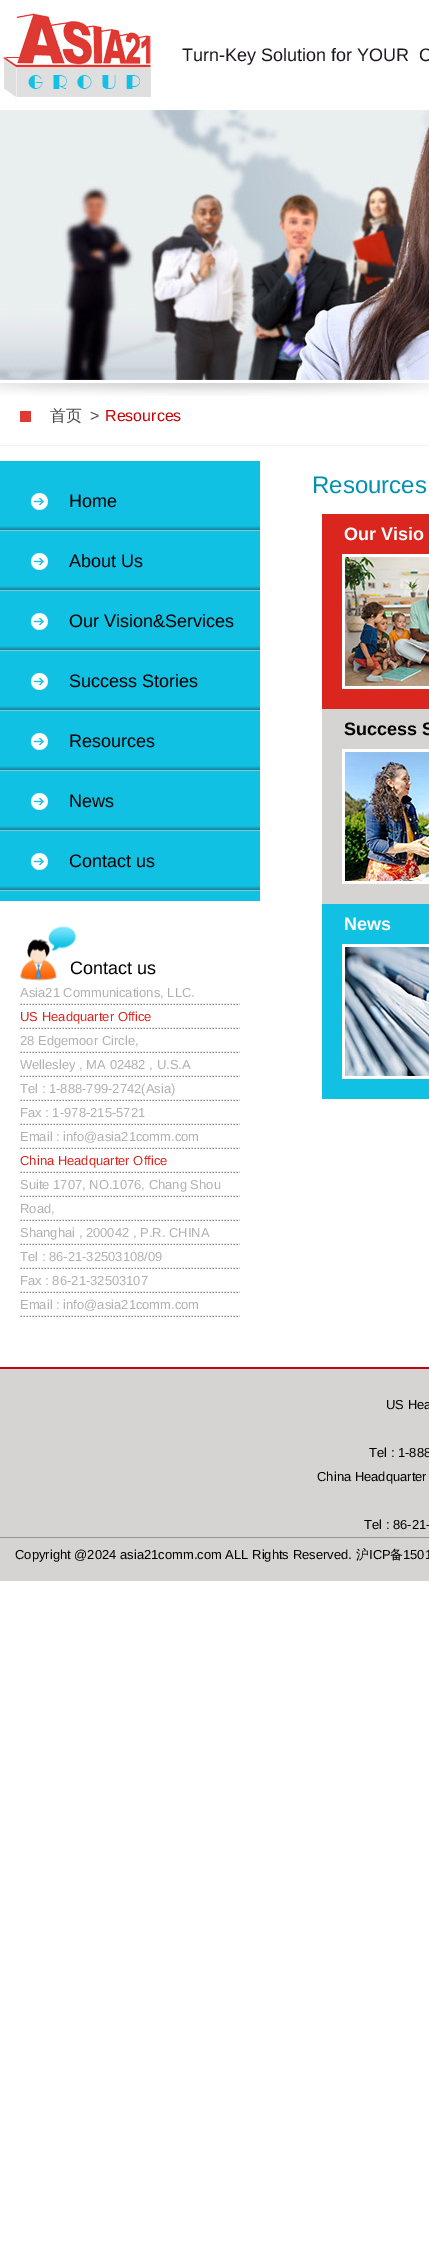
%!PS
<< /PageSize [429 2261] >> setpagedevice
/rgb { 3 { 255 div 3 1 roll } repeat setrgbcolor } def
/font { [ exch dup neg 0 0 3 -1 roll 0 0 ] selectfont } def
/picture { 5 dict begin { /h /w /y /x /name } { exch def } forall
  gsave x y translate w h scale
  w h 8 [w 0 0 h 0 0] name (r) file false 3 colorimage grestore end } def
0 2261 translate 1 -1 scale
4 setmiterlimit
255 255 255 rgb
0 0 429 2261 rectfill
(img/1.rgb) 3 13 148 85 picture
(img/2.rgb) 0 383 429 13 picture
(img/3.rgb) 0 110 429 270 picture
[
  [0 445 429 1 243 243 243]
  [20 411 11 11 222 57 51]
  [0 461 260 440 16 193 228]
] { aload pop rgb rectfill } forall
(img/4.rgb) 0 526 260 5 picture
(img/5.rgb) 31 493 17 17 picture
(img/4.rgb) 0 586 260 5 picture
(img/5.rgb) 31 553 17 17 picture
(img/4.rgb) 0 646 260 5 picture
(img/5.rgb) 31 613 17 17 picture
(img/4.rgb) 0 706 260 5 picture
(img/5.rgb) 31 673 17 17 picture
(img/4.rgb) 0 766 260 5 picture
(img/5.rgb) 31 733 17 17 picture
(img/4.rgb) 0 826 260 5 picture
(img/5.rgb) 31 793 17 17 picture
(img/4.rgb) 0 886 260 5 picture
(img/5.rgb) 31 853 17 17 picture
(img/6.rgb) 20 926 56 55 picture
(img/7.rgb) 20 1003 220 314 picture
218 38 30 rgb
322 514 107 195 rectfill
(img/8.rgb) 342 554 87 135 picture
214 211 211 rgb
322 709 107 195 rectfill
(img/9.rgb) 342 749 87 135 picture
16 193 228 rgb
322 904 107 195 rectfill
(img/10.rgb) 342 944 87 135 picture
[
  [0 1369 429 212 214 211 211]
  [0 1367 429 2 195 2 16]
  [0 1537 429 1 145 146 151]
] { aload pop rgb rectfill } forall
/LiberationSans-Regular 18 font
28 24 29 rgb
182 61 moveto (Turn-Key Solution for YOUR  C) show
/WenQuanYiZenHei-Medium 16 font
73 73 73 rgb
50 421 moveto (首页) show
/LiberationSans-Regular 16 font
90 421 moveto (>) show
198 2 6 rgb
105 421 moveto (Resources) show
/LiberationSans-Regular 18 font
0 0 0 rgb
[
  [(Home) 69 507]
  [(About Us) 69 567]
  [(Our Vision&Services) 69 627]
  [(Success Stories) 69 687]
  [(Resources) 69 747]
  [(News) 69 807]
  [(Contact us) 69 867]
  [(Contact us) 70 974]
] { aload pop moveto show } forall
/LiberationSans-Regular 13 font
178 177 177 rgb
20 997 moveto (Asia21 Communications, LLC.) show
218 37 30 rgb
20 1021 moveto (US Headquarter Office) show
178 177 177 rgb
[
  [(28 Edgemoor Circle,) 20 1045]
  [(Wellesley , MA 02482 , U.S.A) 20 1069]
  [(Tel : 1-888-799-2742\(Asia\)) 20 1093]
  [(Fax : 1-978-215-5721) 20 1117]
  [(Email : info@asia21comm.com) 20 1141]
] { aload pop moveto show } forall
218 37 30 rgb
20 1165 moveto (China Headquarter Office) show
178 177 177 rgb
[
  [(Suite 1707, NO.1076, Chang Shou) 20 1189]
  [(Road,) 20 1213]
  [(Shanghai , 200042 , P.R. CHINA) 20 1237]
  [(Tel : 86-21-32503108/09) 20 1261]
  [(Fax : 86-21-32503107) 20 1285]
  [(Email : info@asia21comm.com) 20 1309]
] { aload pop moveto show } forall
/LiberationSans-Regular 24 font
0 145 174 rgb
312 493 moveto (Resources) show
/LiberationSans-Bold 18 font
255 255 255 rgb
344 540 moveto (Our Visio) show
0 0 0 rgb
344 735 moveto (Success S) show
255 255 255 rgb
344 930 moveto (News) show
/LiberationSans-Regular 13 font
0 0 0 rgb
[
  [(US Hea) 386 1409]
  [(Tel : 1-888) 369 1457]
  [(China Headquarter) 317 1481]
  [(Tel : 86-21-) 364 1529]
  [(Copyright @2024 asia21comm.com ALL Rights Reserved.) 15 1559]
] { aload pop moveto show } forall
/WenQuanYiZenHei-Medium 13 font
356 1559 moveto (沪) show
/LiberationSans-Regular 13 font
369 1559 moveto (ICP) show
/WenQuanYiZenHei-Medium 13 font
390 1559 moveto (备) show
/LiberationSans-Regular 13 font
403 1559 moveto (1501) show
showpage
